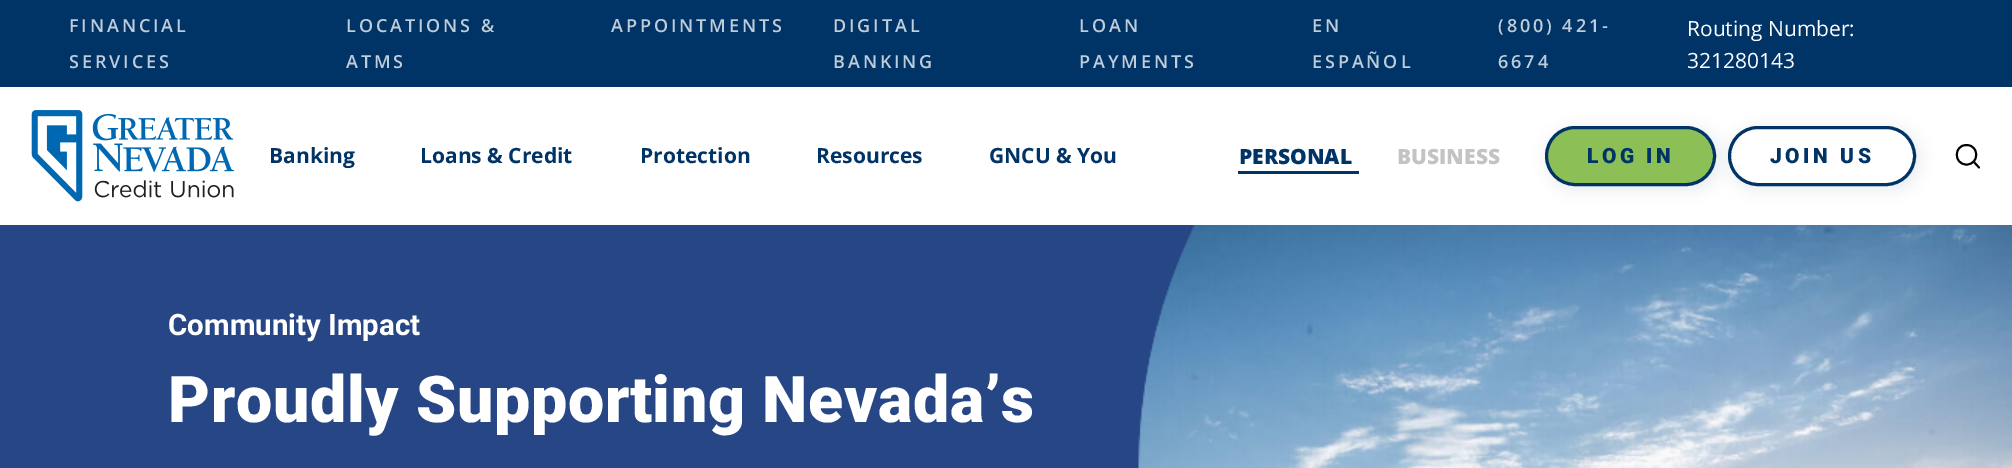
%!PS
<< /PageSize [2012 468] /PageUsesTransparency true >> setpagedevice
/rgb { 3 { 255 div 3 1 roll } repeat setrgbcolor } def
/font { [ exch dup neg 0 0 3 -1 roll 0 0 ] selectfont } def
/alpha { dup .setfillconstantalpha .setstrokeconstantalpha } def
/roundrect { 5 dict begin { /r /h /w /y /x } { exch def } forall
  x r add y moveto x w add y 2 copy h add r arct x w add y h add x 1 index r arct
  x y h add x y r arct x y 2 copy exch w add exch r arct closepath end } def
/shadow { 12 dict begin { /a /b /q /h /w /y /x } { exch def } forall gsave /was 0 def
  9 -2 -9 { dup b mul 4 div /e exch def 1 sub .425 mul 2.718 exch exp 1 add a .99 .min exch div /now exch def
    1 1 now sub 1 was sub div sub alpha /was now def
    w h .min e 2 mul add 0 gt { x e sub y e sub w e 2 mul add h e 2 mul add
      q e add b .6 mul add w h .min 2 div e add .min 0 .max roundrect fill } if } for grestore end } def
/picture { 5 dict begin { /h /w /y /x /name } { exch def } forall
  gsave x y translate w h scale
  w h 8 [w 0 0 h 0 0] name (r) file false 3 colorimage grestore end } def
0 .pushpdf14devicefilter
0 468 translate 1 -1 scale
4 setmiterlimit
255 255 255 rgb
0 0 2012 468 rectfill
0 51 102 rgb
0 0 2012 87 rectfill
(img/1.rgb) 31 110 203 92 picture
1238 171 121 3 rectfill
1548 129 171 60 30 7.5 0.1 shadow
140 191 86 rgb
1546.5 127.5 168 57 28.5 roundrect gsave fill grestore
0 51 102 rgb
3 setlinewidth
stroke
gsave
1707 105 moveto 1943 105 lineto 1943 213 lineto 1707 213 lineto closepath 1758 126 moveto 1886 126 lineto 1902.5 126 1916 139.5 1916 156 curveto 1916 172.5 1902.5 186 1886 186 curveto 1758 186 lineto 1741.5 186 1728 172.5 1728 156 curveto 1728 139.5 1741.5 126 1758 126 curveto closepath eoclip newpath
1731 129 188 60 30 7.5 0.1 shadow
grestore
1729.5 127.5 185 57 28.5 roundrect stroke
0 0 0 rgb
1.9 setlinewidth
1 setlinecap
1 setlinejoin
1966.5 164.5 moveto 1979.5 164.5 1979.5 145 1966.5 145 curveto 1953.5 145 1953.5 164.5 1966.5 164.5 curveto closepath 1973.5 161.5 moveto 1979 167.5 lineto stroke
gsave 0 225 moveto 1196 225 lineto 1196 468 lineto 0 468 lineto closepath clip newpath
<< /ShadingType 2 /ColorSpace /DeviceRGB /Coords [1007 189 1007 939] /Extend [true true] /Function << /FunctionType 3 /Domain [0 1] /Functions [<< /FunctionType 2 /Domain [0 1] /C0 [0.149 0.275 0.525] /C1 [0.149 0.275 0.525] /N 1 >> << /FunctionType 2 /Domain [0 1] /C0 [1 1 1] /C1 [1 1 1] /N 1 >>] /Bounds [0.84] /Encode [0 1 0 1] >> >> shfill grestore
(img/2.rgb) 1138 225 874 243 picture
/OpenSans-SemiBold 18 font
191 204 217 rgb
69 32 moveto 2.9 0 (FINANCIAL) ashow
69 68 moveto 2.9 0 (SERVICES) ashow
346 32 moveto 2.9 0 (LOCATIONS &) ashow
346 68 moveto 2.9 0 (ATMS) ashow
611 32 moveto 2.9 0 (APPOINTMENTS) ashow
833 32 moveto 2.9 0 (DIGITAL) ashow
833 68 moveto 2.9 0 (BANKING) ashow
1079 32 moveto 2.9 0 (LOAN) ashow
1079 68 moveto 2.9 0 (PAYMENTS) ashow
1312 32 moveto 2.9 0 (EN) ashow
1312 68 moveto 2.9 0 (ESPAÑOL) ashow
1498 32 moveto 2.9 0 (\(800\) 421-) ashow
1498 68 moveto 2.9 0 (6674) ashow
/OpenSans-Regular 21 font
255 255 255 rgb
1687 36 moveto (Routing Number:) show
1687 68 moveto (321280143) show
/OpenSans-Bold 21 font
0 51 102 rgb
[
  [(Banking) 269 163]
  [(Loans & Credit) 420 163]
  [(Protection) 640 163]
  [(Resources) 816 163]
  [(GNCU & You) 989 163]
] { aload pop moveto show } forall
/OpenSans-ExtraBold 21 font
1239 164 moveto (PERSONAL) show
195 195 195 rgb
1397 164 moveto (BUSINESS) show
/Roboto-Black 21 font
0 51 102 rgb
1587 163 moveto 3.5 0 (LOG IN) ashow
1770 163 moveto 3.5 0 (JOIN US) ashow
/Roboto-Bold 29.5 font
255 255 255 rgb
168 335 moveto (Community Impact) show
/Roboto-Black 64.5 font
168 422 moveto 0.65 0 (Proudly Supporting Nevada’s) ashow
.poppdf14devicefilter showpage
